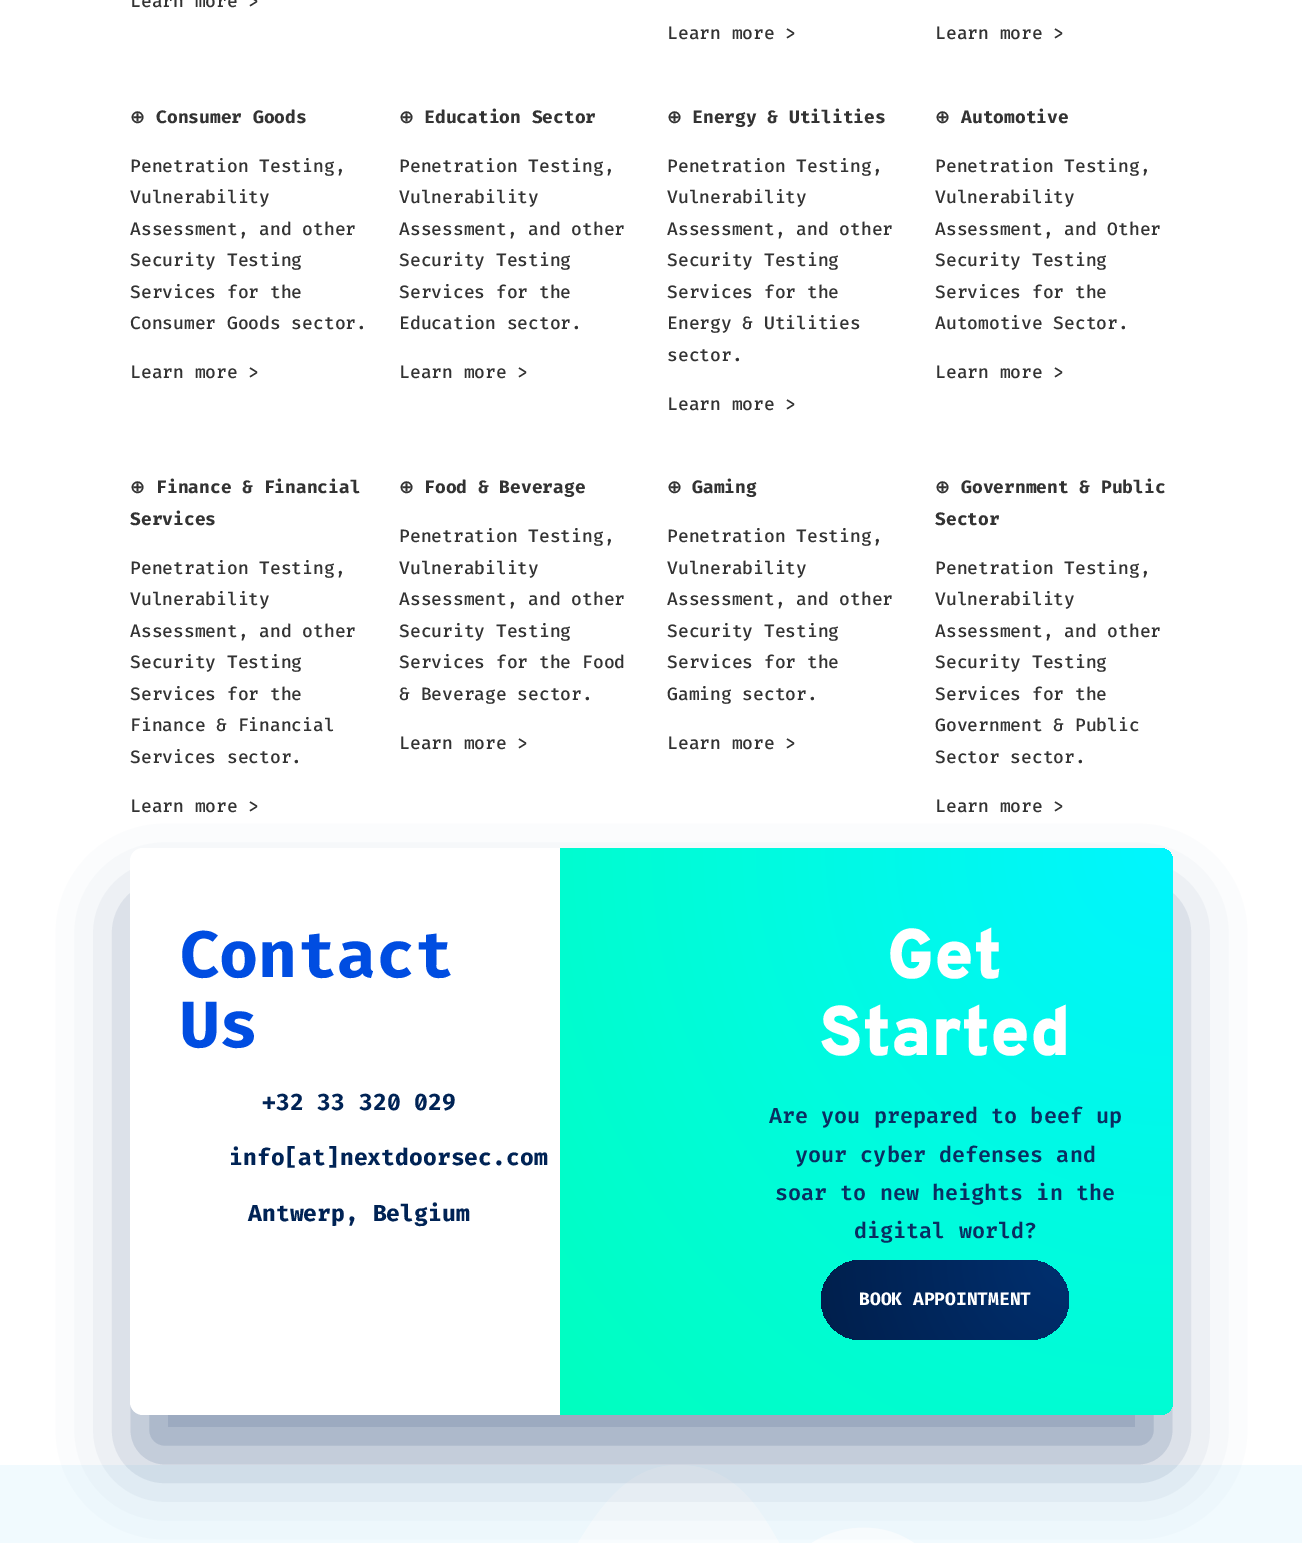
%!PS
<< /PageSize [1302 1543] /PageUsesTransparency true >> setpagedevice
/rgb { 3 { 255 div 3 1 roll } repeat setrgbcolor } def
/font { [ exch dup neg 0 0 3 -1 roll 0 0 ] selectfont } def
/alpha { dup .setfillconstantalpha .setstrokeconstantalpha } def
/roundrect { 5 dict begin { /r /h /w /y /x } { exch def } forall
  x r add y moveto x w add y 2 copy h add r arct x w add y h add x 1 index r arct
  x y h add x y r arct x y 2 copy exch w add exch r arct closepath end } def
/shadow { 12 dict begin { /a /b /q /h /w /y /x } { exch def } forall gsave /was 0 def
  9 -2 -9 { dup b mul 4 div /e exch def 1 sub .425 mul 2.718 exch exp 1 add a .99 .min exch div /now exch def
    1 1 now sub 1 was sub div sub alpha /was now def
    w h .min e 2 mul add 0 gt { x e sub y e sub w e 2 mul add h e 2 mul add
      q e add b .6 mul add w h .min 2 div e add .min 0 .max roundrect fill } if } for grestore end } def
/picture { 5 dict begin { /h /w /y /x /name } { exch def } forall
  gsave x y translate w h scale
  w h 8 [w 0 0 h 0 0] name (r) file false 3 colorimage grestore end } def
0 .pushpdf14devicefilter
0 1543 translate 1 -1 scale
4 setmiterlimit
255 255 255 rgb
0 0 1302 1543 rectfill
(img/1.rgb) 0 1465 1302 78 picture
10 45 97 rgb
140 908 1023 547 2.5 37.5 0.48 shadow
255 255 255 rgb
130 848 1043 567 13 roundrect fill
gsave 560 848 moveto 1160 848 lineto 1167 848 1173 854 1173 861 curveto 1173 1402 lineto 1173 1409 1167 1415 1160 1415 curveto 560 1415 lineto closepath clip newpath 1173 848 translate 835 835 scale
<< /ShadingType 3 /ColorSpace /DeviceRGB /Coords [0 0 0 0 0 1] /Extend [true true] /Function << /FunctionType 2 /Domain [0 1] /C0 [0 0.965 1] /C1 [0 1 0.749] /N 1 >> >> shfill grestore
gsave 821 1260 248 80 40 roundrect clip newpath 1069 1260 translate 260 260 scale
<< /ShadingType 3 /ColorSpace /DeviceRGB /Coords [0 0 0 0 0 1] /Extend [true true] /Function << /FunctionType 2 /Domain [0 1] /C0 [0 0.188 0.439] /C1 [0 0.122 0.298] /N 1 >> >> shfill grestore
/FiraCode-Medium 17.5 font
51 51 51 rgb
[
  [(Learn more >) 130 7]
  [(Learn more >) 667 39]
  [(Learn more >) 935 39]
] { aload pop moveto show } forall
/DejaVuSans-Bold 17.5 font
130 123 moveto (⊕) show
/FiraCode-Bold 17.5 font
156 123 moveto (Consumer Goods) show
/FiraCode-Medium 17.5 font
[
  [(Penetration Testing,) 130 172]
  [(Vulnerability) 130 203]
  [(Assessment, and other) 130 235]
  [(Security Testing) 130 266]
  [(Services for the) 130 298]
  [(Consumer Goods sector.) 130 329]
  [(Learn more >) 130 378]
] { aload pop moveto show } forall
/DejaVuSans-Bold 17.5 font
399 123 moveto (⊕) show
/FiraCode-Bold 17.5 font
424 123 moveto (Education Sector) show
/FiraCode-Medium 17.5 font
[
  [(Penetration Testing,) 399 172]
  [(Vulnerability) 399 203]
  [(Assessment, and other) 399 235]
  [(Security Testing) 399 266]
  [(Services for the) 399 298]
  [(Education sector.) 399 329]
  [(Learn more >) 399 378]
] { aload pop moveto show } forall
/DejaVuSans-Bold 17.5 font
667 123 moveto (⊕) show
/FiraCode-Bold 17.5 font
692 123 moveto (Energy & Utilities) show
/FiraCode-Medium 17.5 font
[
  [(Penetration Testing,) 667 172]
  [(Vulnerability) 667 203]
  [(Assessment, and other) 667 235]
  [(Security Testing) 667 266]
  [(Services for the) 667 298]
  [(Energy & Utilities) 667 329]
  [(sector.) 667 361]
  [(Learn more >) 667 410]
] { aload pop moveto show } forall
/DejaVuSans-Bold 17.5 font
935 123 moveto (⊕) show
/FiraCode-Bold 17.5 font
961 123 moveto (Automotive) show
/FiraCode-Medium 17.5 font
[
  [(Penetration Testing,) 935 172]
  [(Vulnerability) 935 203]
  [(Assessment, and Other) 935 235]
  [(Security Testing) 935 266]
  [(Services for the) 935 298]
  [(Automotive Sector.) 935 329]
  [(Learn more >) 935 378]
] { aload pop moveto show } forall
/DejaVuSans-Bold 17.5 font
130 493 moveto (⊕) show
/FiraCode-Bold 17.5 font
156 493 moveto (Finance & Financial) show
130 525 moveto (Services) show
/FiraCode-Medium 17.5 font
[
  [(Penetration Testing,) 130 574]
  [(Vulnerability) 130 605]
  [(Assessment, and other) 130 637]
  [(Security Testing) 130 668]
  [(Services for the) 130 700]
  [(Finance & Financial) 130 731]
  [(Services sector.) 130 763]
  [(Learn more >) 130 812]
] { aload pop moveto show } forall
/DejaVuSans-Bold 17.5 font
399 493 moveto (⊕) show
/FiraCode-Bold 17.5 font
424 493 moveto (Food & Beverage) show
/FiraCode-Medium 17.5 font
[
  [(Penetration Testing,) 399 542]
  [(Vulnerability) 399 574]
  [(Assessment, and other) 399 605]
  [(Security Testing) 399 637]
  [(Services for the Food) 399 668]
  [(& Beverage sector.) 399 700]
  [(Learn more >) 399 749]
] { aload pop moveto show } forall
/DejaVuSans-Bold 17.5 font
667 493 moveto (⊕) show
/FiraCode-Bold 17.5 font
692 493 moveto (Gaming) show
/FiraCode-Medium 17.5 font
[
  [(Penetration Testing,) 667 542]
  [(Vulnerability) 667 574]
  [(Assessment, and other) 667 605]
  [(Security Testing) 667 637]
  [(Services for the) 667 668]
  [(Gaming sector.) 667 700]
  [(Learn more >) 667 749]
] { aload pop moveto show } forall
/DejaVuSans-Bold 17.5 font
935 493 moveto (⊕) show
/FiraCode-Bold 17.5 font
961 493 moveto (Government & Public) show
935 525 moveto (Sector) show
/FiraCode-Medium 17.5 font
[
  [(Penetration Testing,) 935 574]
  [(Vulnerability) 935 605]
  [(Assessment, and other) 935 637]
  [(Security Testing) 935 668]
  [(Services for the) 935 700]
  [(Government & Public) 935 731]
  [(Sector sector.) 935 763]
  [(Learn more >) 935 812]
] { aload pop moveto show } forall
/FiraCode-Bold 63.75 font
0 77 225 rgb
180 977 moveto (Contact) show
180 1047 moveto (Us) show
/FiraCode-Bold 22.5 font
0 35 85 rgb
[
  [(+32 33 320 029) 262 1110]
  [(info[at]nextdoorsec.com) 229 1165]
  [(Antwerp, Belgium) 248 1221]
] { aload pop moveto show } forall
/Overpass-Black 70 font
255 255 255 rgb
887 978 moveto (Get) show
819 1055 moveto (Started) show
/FiraCode-SemiBold 21.25 font
10 45 97 rgb
[
  [(Are you prepared to beef up) 769 1123]
  [(your cyber defenses and) 795 1162]
  [(soar to new heights in the) 775 1200]
  [(digital world?) 854 1238]
] { aload pop moveto show } forall
/FiraCode-Bold 17.5 font
255 255 255 rgb
859 1305 moveto (BOOK APPOINTMENT) show
.poppdf14devicefilter showpage
